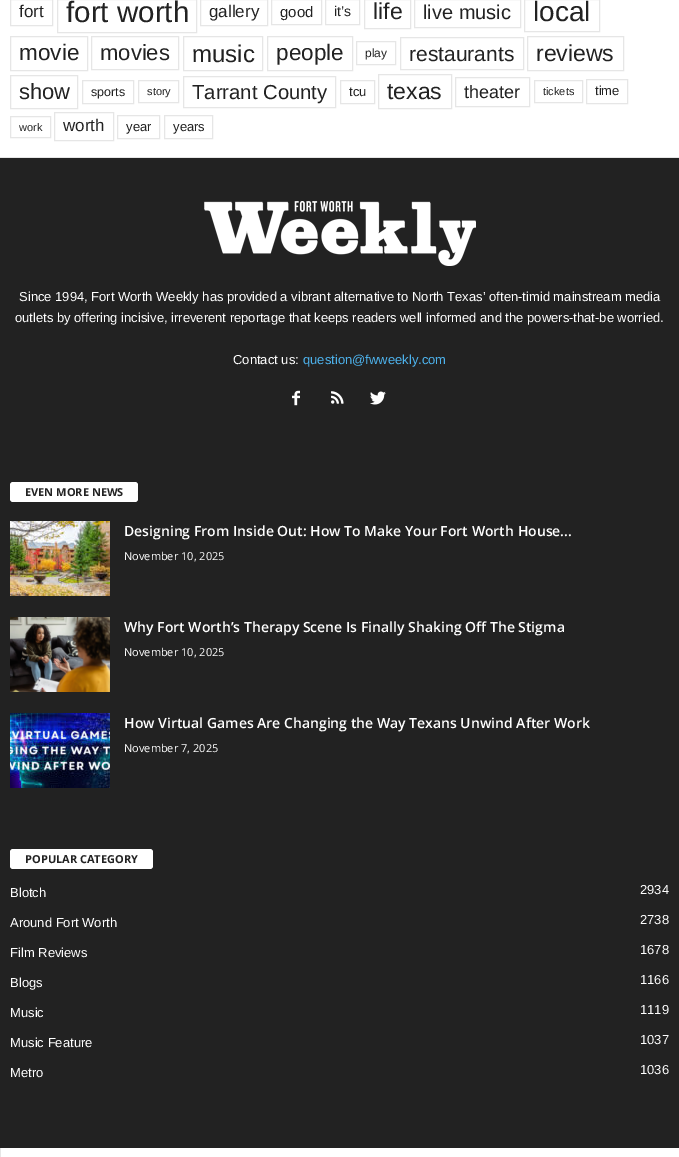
%!PS
<< /PageSize [679 1157] >> setpagedevice
/rgb { 3 { 255 div 3 1 roll } repeat setrgbcolor } def
/font { [ exch dup neg 0 0 3 -1 roll 0 0 ] selectfont } def
/roundrect { 5 dict begin { /r /h /w /y /x } { exch def } forall
  x r add y moveto x w add y 2 copy h add r arct x w add y h add x 1 index r arct
  x y h add x y r arct x y 2 copy exch w add exch r arct closepath end } def
/picture { 5 dict begin { /h /w /y /x /name } { exch def } forall
  gsave x y translate w h scale
  w h 8 [w 0 0 h 0 0] name (r) file false 3 colorimage grestore end } def
0 1157 translate 1 -1 scale
4 setmiterlimit
255 255 255 rgb
0 0 679 1157 rectfill
230 230 230 rgb
0 157 679 1 rectfill
10.5 -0.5 42 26 rectstroke
57.5 -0.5 139 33 rectstroke
200.5 -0.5 67 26 rectstroke
271.5 -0.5 50 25 rectstroke
325.5 -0.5 34 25 rectstroke
364.5 -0.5 46 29 rectstroke
414.5 -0.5 106 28 rectstroke
524.5 -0.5 75 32 rectstroke
10.5 36.5 77 34 rectstroke
91.5 36.5 87 33 rectstroke
183.5 36.5 79 34 rectstroke
267.5 36.5 85 34 rectstroke
356.5 41.5 39 23 rectstroke
400.5 37.5 123 32 rectstroke
527.5 36.5 96 34 rectstroke
10.5 75.5 67 33 rectstroke
82.5 80.5 51 23 rectstroke
138.5 80.5 40 22 rectstroke
183.5 76.5 152 31 rectstroke
340.5 80.5 34 23 rectstroke
378.5 74.5 73 34 rectstroke
455.5 77.5 74 29 rectstroke
534.5 80.5 48 22 rectstroke
586.5 79.5 41 24 rectstroke
10.5 116.5 40 21 rectstroke
54.5 112.5 59 28 rectstroke
117.5 115.5 42 23 rectstroke
164.5 115.5 48 23 rectstroke
34 34 34 rgb
0 158 679 990 rectfill
(img/1.rgb) 204 201 272 65 picture
(img/2.rgb) 292 390 8 16 picture
(img/3.rgb) 331 391 13 13 picture
(img/4.rgb) 370 391 16 14 picture
255 255 255 rgb
10 482 128 20 3 roundrect fill
(img/5.rgb) 10 521 100 75 picture
(img/6.rgb) 10 617 100 75 picture
(img/7.rgb) 10 713 100 75 picture
10 849 143 20 3 roundrect fill
230 230 230 rgb
0 1148 1 9 rectfill
/LiberationSans-Regular 17 font
34 34 34 rgb
19 17 moveto (fort) show
/LiberationSans-Regular 29.5 font
66 22 moveto (fort worth) show
/LiberationSans-Regular 17 font
209 17 moveto (gallery) show
/LiberationSans-Regular 15 font
280 17 moveto (good) show
/LiberationSans-Regular 14 font
334 16 moveto (it’s) show
/LiberationSans-Regular 23 font
373 19 moveto (life) show
/LiberationSans-Regular 20 font
423 19 moveto (live music) show
/LiberationSans-Regular 28 font
533 21 moveto (local) show
/LiberationSans-Regular 22.5 font
19 60 moveto (movie) show
/LiberationSans-Regular 22 font
100 60 moveto (movies) show
/LiberationSans-Regular 24 font
192 62 moveto (music) show
/LiberationSans-Regular 22.5 font
276 60 moveto (people) show
/LiberationSans-Regular 12 font
365 57 moveto (play) show
/LiberationSans-Regular 21 font
409 61 moveto (restaurants) show
/LiberationSans-Regular 23 font
536 61 moveto (reviews) show
/LiberationSans-Regular 22 font
19 99 moveto (show) show
/LiberationSans-Regular 12.5 font
91 96 moveto (sports) show
/LiberationSans-Regular 11 font
147 95 moveto (story) show
/LiberationSans-Regular 20.25 font
192 99 moveto (Tarrant County) show
/LiberationSans-Regular 13 font
349 96 moveto (tcu) show
/LiberationSans-Regular 23 font
387 99 moveto (texas) show
/LiberationSans-Regular 18 font
464 98 moveto (theater) show
/LiberationSans-Regular 11 font
543 95 moveto (tickets) show
/LiberationSans-Regular 13 font
595 95 moveto (time) show
/LiberationSans-Regular 11 font
19 131 moveto (work) show
/LiberationSans-Regular 17 font
63 131 moveto (worth) show
/LiberationSans-Regular 13 font
126 131 moveto (year) show
173 131 moveto (years) show
255 255 255 rgb
[
  [(Since 1994, Fort Worth Weekly has provided a vibrant alternative to North Texas’ often-timid mainstream media) 19 301]
  [(outlets by offering incisive, irreverent reportage that keeps readers well informed and the powers-that-be worried.) 15 322]
  [(Contact us:) 233 364]
] { aload pop moveto show } forall
77 178 236 rgb
303 364 moveto (question@fwweekly.com) show
/OpenSans-Bold 11 font
34 34 34 rgb
25 496 moveto (EVEN MORE NEWS) show
/OpenSans-SemiBold 14 font
255 255 255 rgb
124 536 moveto (Designing From Inside Out: How To Make Your Fort Worth House...) show
/OpenSans-Regular 11 font
124 560 moveto (November 10, 2025) show
/OpenSans-SemiBold 14 font
124 632 moveto (Why Fort Worth’s Therapy Scene Is Finally Shaking Off The Stigma) show
/OpenSans-Regular 11 font
124 656 moveto (November 10, 2025) show
/OpenSans-SemiBold 14 font
124 728 moveto (How Virtual Games Are Changing the Way Texans Unwind After Work) show
/OpenSans-Regular 11 font
124 752 moveto (November 7, 2025) show
/OpenSans-Bold 11 font
34 34 34 rgb
25 863 moveto (POPULAR CATEGORY) show
/LiberationSans-Regular 13 font
255 255 255 rgb
[
  [(Blotch) 10 897]
  [(2934) 640 894]
  [(Around Fort Worth) 10 927]
  [(2738) 640 924]
  [(Film Reviews) 10 957]
  [(1678) 640 954]
  [(Blogs) 10 987]
  [(1166) 640 984]
  [(Music) 10 1017]
  [(1119) 640 1014]
  [(Music Feature) 10 1047]
  [(1037) 640 1044]
  [(Metro) 10 1077]
  [(1036) 640 1074]
] { aload pop moveto show } forall
showpage
